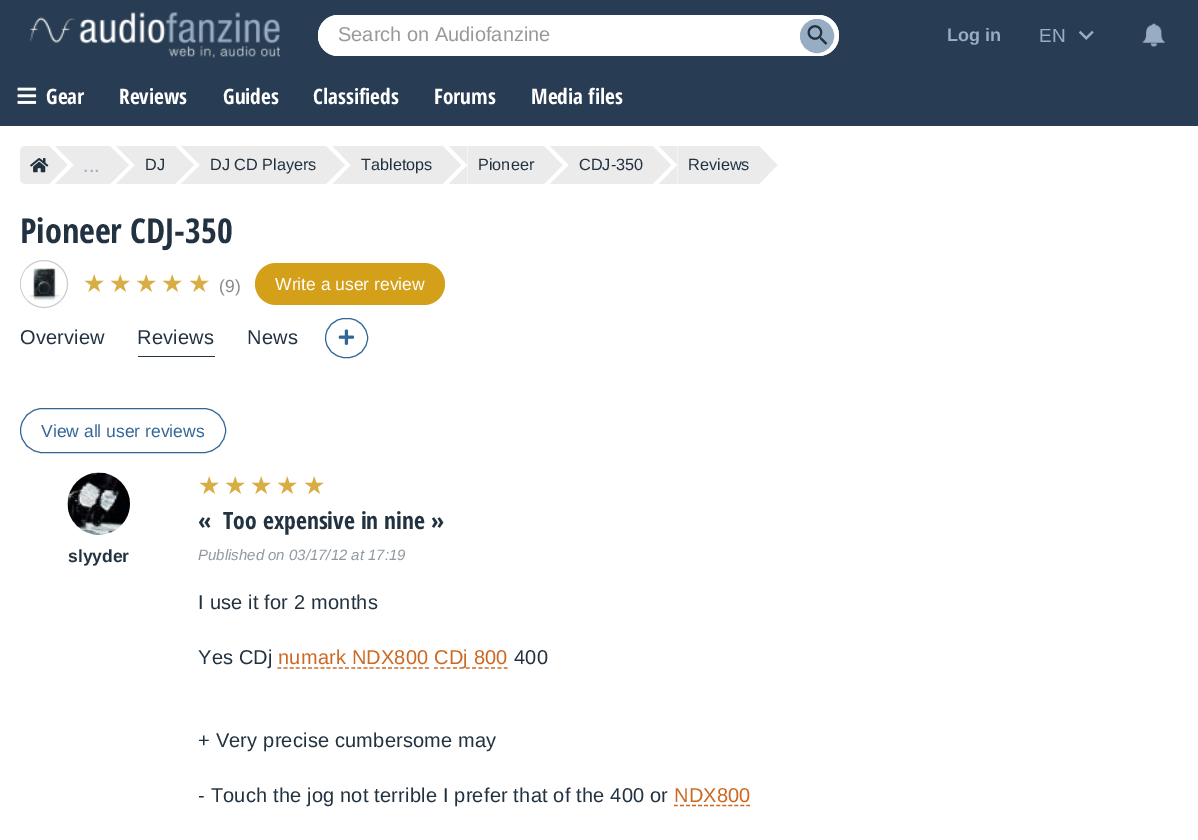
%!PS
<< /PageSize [1198 840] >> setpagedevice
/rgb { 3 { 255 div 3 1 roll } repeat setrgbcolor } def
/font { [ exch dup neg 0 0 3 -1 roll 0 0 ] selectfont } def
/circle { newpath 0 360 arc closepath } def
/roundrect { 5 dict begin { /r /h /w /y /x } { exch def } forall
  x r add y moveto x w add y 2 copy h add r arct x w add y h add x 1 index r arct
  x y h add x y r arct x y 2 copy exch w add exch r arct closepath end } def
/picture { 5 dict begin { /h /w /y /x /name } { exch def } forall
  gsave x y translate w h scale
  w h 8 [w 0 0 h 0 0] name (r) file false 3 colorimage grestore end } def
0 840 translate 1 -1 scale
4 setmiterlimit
255 255 255 rgb
0 0 1198 840 rectfill
40 61 83 rgb
0 0 1198 126 rectfill
(img/1.rgb) 30 12 250 46 picture
255 255 255 rgb
318 15 521 41 20.5 roundrect fill
338 15 moveto 818 15 lineto 830 15 839 24 839 36 curveto 839 47 830 56 818 56 curveto 338 56 lineto 327 56 318 47 318 36 curveto 318 24 327 15 338 15 curveto closepath 338 16 moveto 818 16 lineto 830 16 839 25 839 36 curveto 839 46 830 55 818 55 curveto 338 55 lineto 327 55 319 46 319 36 curveto 319 25 327 16 338 16 curveto closepath eofill
151 173 196 rgb
817 36 16.5 circle gsave fill grestore
stroke
(img/2.rgb) 807 25 21 20 picture
(img/3.rgb) 1078 30 16 10 picture
(img/4.rgb) 1142 23 23 24 picture
(img/5.rgb) 17 87 20 17 picture
235 235 236 rgb
26 146 moveto 49 146 lineto 49 184 lineto 26 184 lineto 22.5 184 20 181.5 20 178 curveto 20 152 lineto 20 148.5 22.5 146 26 146 curveto closepath fill
(img/6.rgb) 30 158 19 15 picture
49 184 moveto 49 146 lineto 67.5 165 lineto closepath fill
74 146 36 38 rectfill
55 146 moveto 74 146 lineto 74 165 lineto closepath 74 184 moveto 55 184 lineto 74 165 lineto closepath fill
110 184 moveto 110 146 lineto 129 165 lineto closepath fill
135 146 40 38 rectfill
116 146 moveto 135 146 lineto 135 165 lineto closepath 135 184 moveto 116 184 lineto 135 165 lineto closepath fill
175 184 moveto 175 146 lineto 194 165 lineto closepath fill
200 146 126 38 rectfill
181 146 moveto 200 146 lineto 200 165 lineto closepath 200 184 moveto 181 184 lineto 200 165 lineto closepath fill
326 184 moveto 326 146 lineto 345 165 lineto closepath fill
351 146 92 38 rectfill
332.5 146 moveto 351 146 lineto 351 165 lineto closepath 351 184 moveto 332.5 184 lineto 351 165 lineto closepath fill
442.5 184 moveto 442.5 146 lineto 461 165 lineto closepath fill
468 146 76 38 rectfill
449 146 moveto 467.5 146 lineto 467.5 165 lineto closepath 467.5 184 moveto 449 184 lineto 467.5 165 lineto closepath fill
544 184 moveto 544 146 lineto 562.5 165 lineto closepath fill
569 146 84 38 rectfill
550 146 moveto 569 146 lineto 569 165 lineto closepath 569 184 moveto 550 184 lineto 569 165 lineto closepath fill
652.5 184 moveto 652.5 146 lineto 671 165 lineto closepath fill
678 146 81 38 rectfill
659 146 moveto 677.5 146 lineto 677.5 165 lineto closepath 677.5 184 moveto 659 184 lineto 677.5 165 lineto closepath fill
759 184 moveto 759 146 lineto 777.5 165 lineto closepath fill
205 205 205 rgb
44 284 23.5 circle stroke
(img/7.rgb) 21 268 40 33 picture
212 159 25 rgb
255 263 190 42 21 roundrect fill
34 50 64 rgb
138 356 77 1 rectfill
51 102 151 rgb
325.5 318.5 42 39 19.5 roundrect stroke
(img/8.rgb) 338 329 17 16 picture
20.5 408.5 205 44 22 roundrect stroke
(img/9.rgb) 67 472 63 63 picture
204 104 33 rgb
1.2 setlinewidth
[3.75 2.4] 0 setdash
277.5 668 moveto 429 668 lineto stroke
[3.75 2.61] 0 setdash
434 668 moveto 507.5 668 lineto stroke
[3.75 2.29] 0 setdash
674 805.5 moveto 750 805.5 lineto stroke
/LiberationSans-Regular 20 font
153 153 153 rgb
338 41 moveto (Search on Audiofanzine) show
/LiberationSans-Bold 18 font
151 173 196 rgb
947 41 moveto (Log in) show
/LiberationSans-Regular 19 font
1039 42 moveto (EN) show
/OpenSansCondensed-Bold 21.25 font
255 255 255 rgb
[
  [(Gear) 46 104]
  [(Reviews) 119 104]
  [(Guides) 223 104]
  [(Classifieds) 313 104]
  [(Forums) 434 104]
  [(Media files) 531 104]
] { aload pop moveto show } forall
/LiberationSans-Regular 20 font
151 173 196 rgb
83 172 moveto (...) show
/LiberationSans-Regular 16.25 font
34 50 64 rgb
[
  [(DJ) 145 170]
  [(DJ CD Players) 210 170]
  [(Tabletops) 361 170]
  [(Pioneer) 478 170]
  [(CDJ-350) 579 170]
  [(Reviews) 688 170]
] { aload pop moveto show } forall
/OpenSansCondensed-Bold 34.25 font
20 243 moveto (Pioneer CDJ-350) show
/DejaVuSans-Regular 25 font
216 174 68 rgb
83 292 moveto 3.75 0 (★★★★★) ashow
/LiberationSans-Regular 17.5 font
136 136 136 rgb
219 292 moveto (\(9\)) show
255 255 255 rgb
275 290 moveto (Write a user review) show
/LiberationSans-Regular 20 font
34 50 64 rgb
20 344 moveto 0.2 0 (Overview) ashow
137 344 moveto 0.2 0 (Reviews) ashow
247 344 moveto 0.2 0 (News) ashow
/LiberationSans-Regular 17.5 font
51 102 151 rgb
41 437 moveto (View all user reviews) show
/LiberationSans-Bold 17.5 font
34 50 64 rgb
68 562 moveto (slyyder) show
/DejaVuSans-Regular 25 font
216 174 68 rgb
198 494 moveto 3.75 0 (★★★★★) ashow
/OpenSansCondensed-Bold 23.75 font
34 50 64 rgb
[
  [(«) 198 529]
  [(Too expensive in nine) 223 529]
  [(») 431 529]
] { aload pop moveto show } forall
/LiberationSans-Italic 15 font
144 152 160 rgb
198 560 moveto (Published on 03/17/12 at 17:19) show
/LiberationSans-Regular 20 font
34 50 64 rgb
198 609 moveto 0.2 0 (I use it for 2 months) ashow
198 664 moveto 0.2 0 (Yes CDj) ashow
204 104 33 rgb
278 664 moveto 0.2 0 (numark NDX800) ashow
434 664 moveto 0.2 0 (CDj 800) ashow
34 50 64 rgb
514 664 moveto 0.2 0 (400) ashow
198 747 moveto 0.2 0 (+ Very precise cumbersome may) ashow
198 802 moveto 0.2 0 (- Touch the jog not terrible I prefer that of the 400 or) ashow
204 104 33 rgb
674 802 moveto 0.2 0 (NDX800) ashow
showpage
